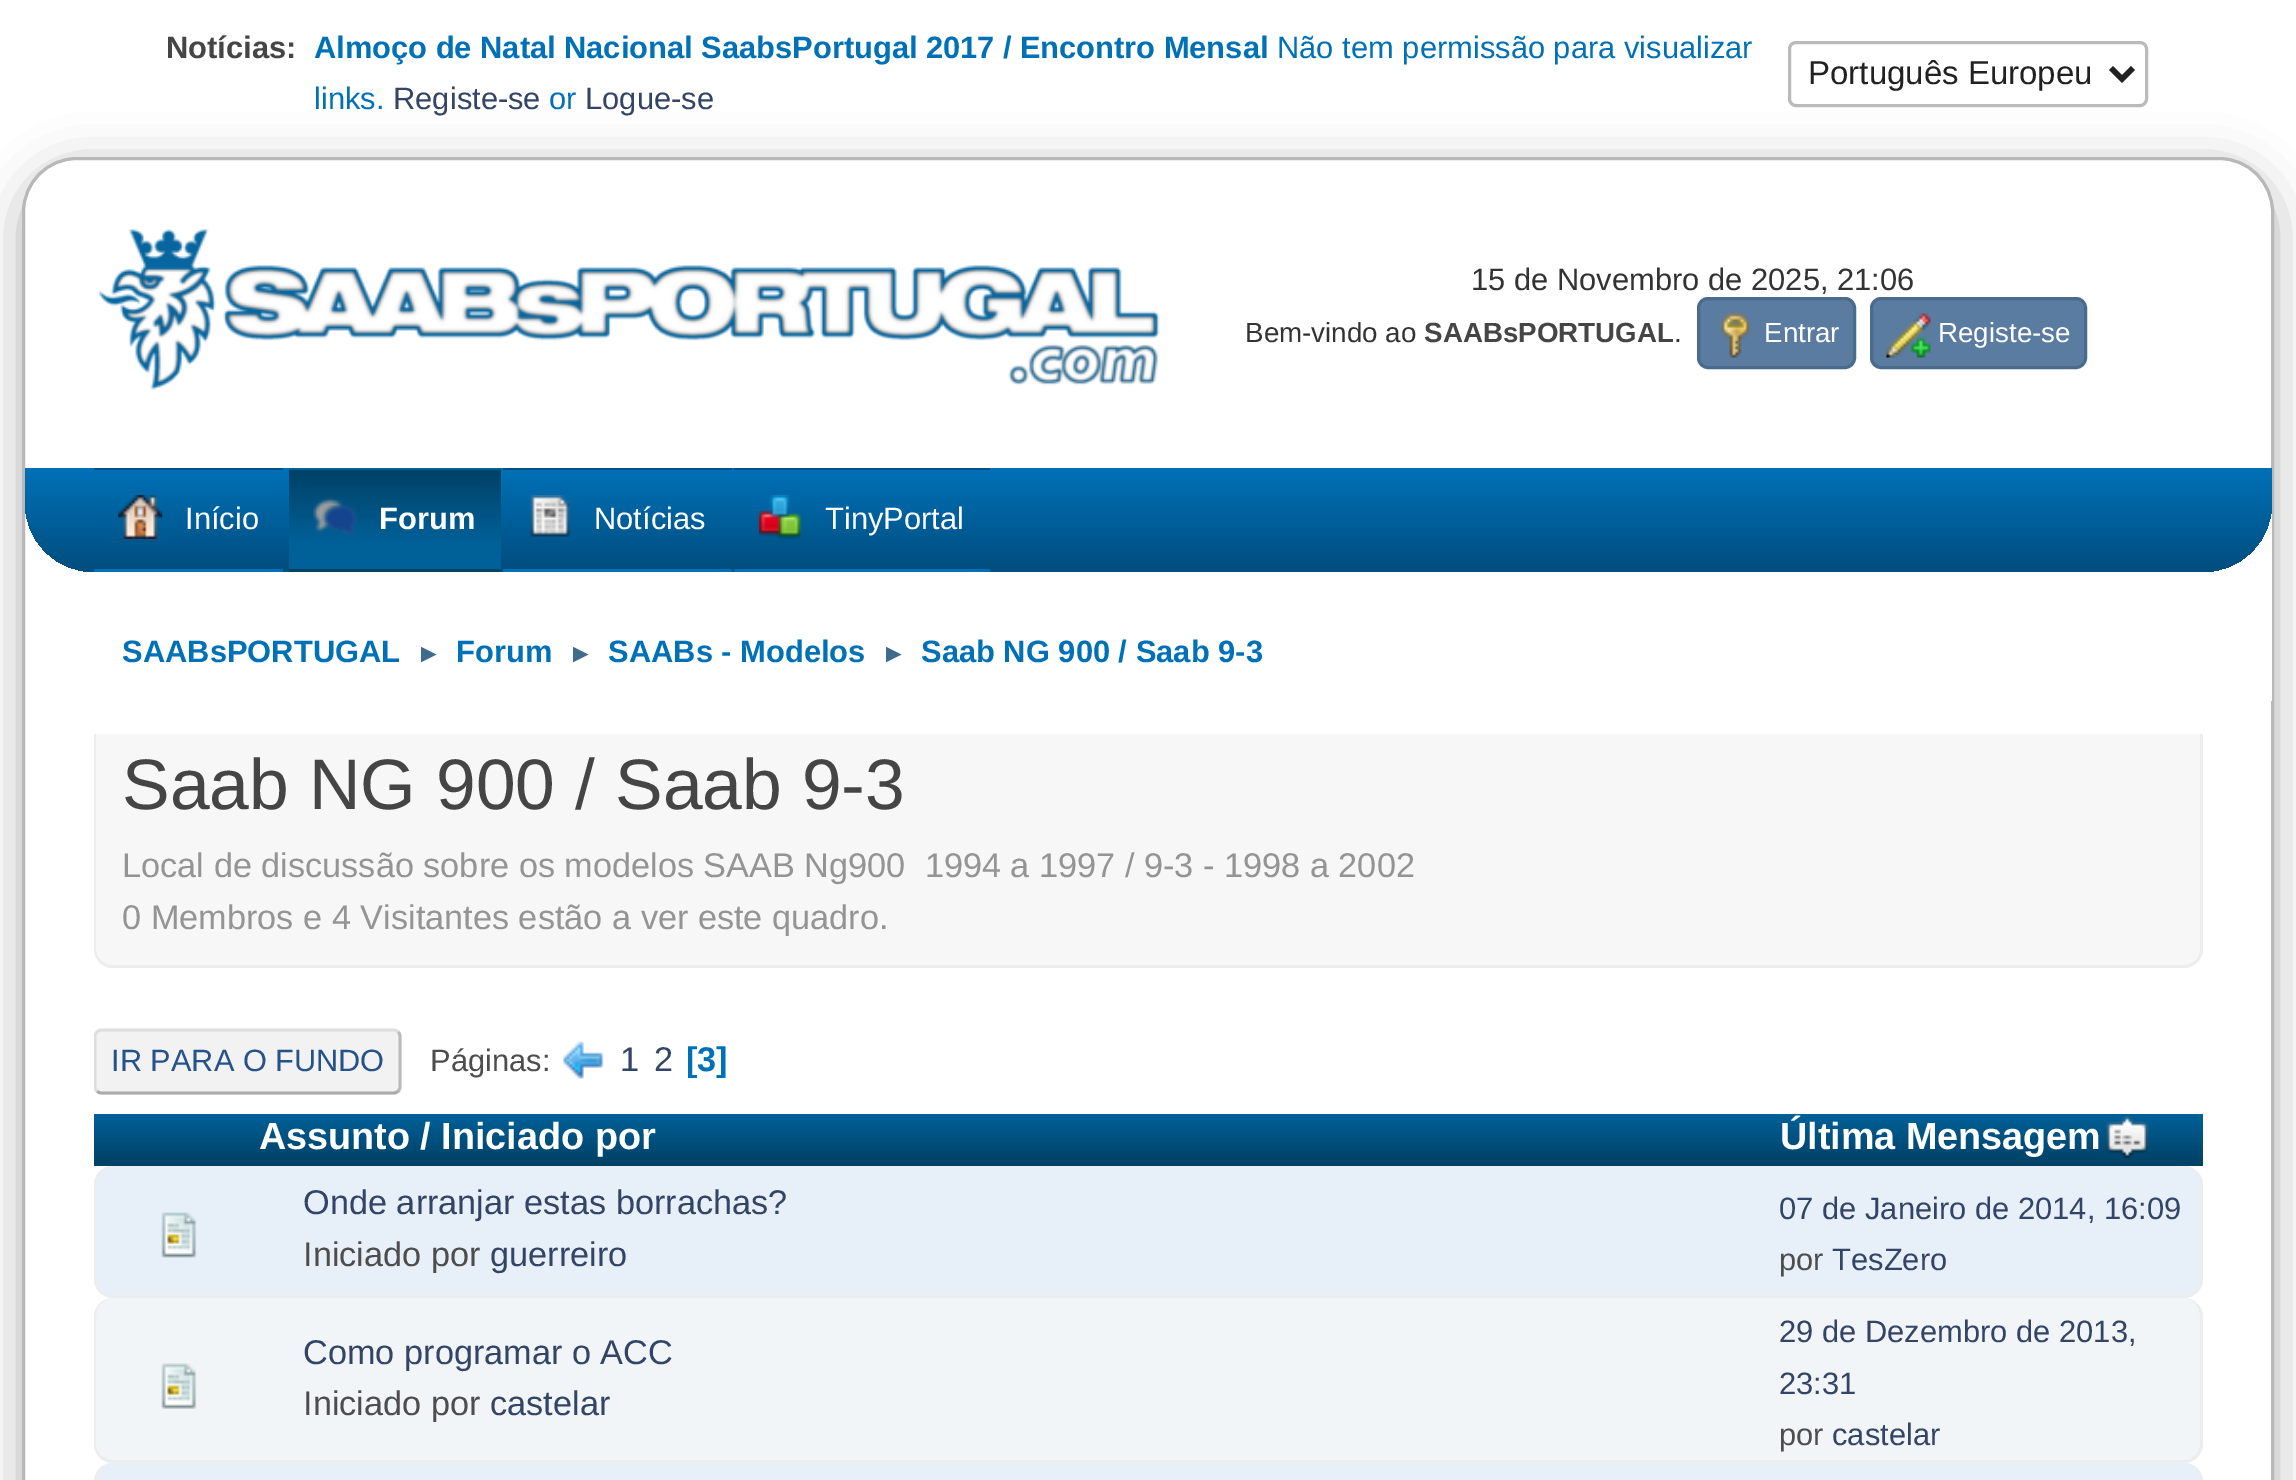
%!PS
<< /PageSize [2296 1480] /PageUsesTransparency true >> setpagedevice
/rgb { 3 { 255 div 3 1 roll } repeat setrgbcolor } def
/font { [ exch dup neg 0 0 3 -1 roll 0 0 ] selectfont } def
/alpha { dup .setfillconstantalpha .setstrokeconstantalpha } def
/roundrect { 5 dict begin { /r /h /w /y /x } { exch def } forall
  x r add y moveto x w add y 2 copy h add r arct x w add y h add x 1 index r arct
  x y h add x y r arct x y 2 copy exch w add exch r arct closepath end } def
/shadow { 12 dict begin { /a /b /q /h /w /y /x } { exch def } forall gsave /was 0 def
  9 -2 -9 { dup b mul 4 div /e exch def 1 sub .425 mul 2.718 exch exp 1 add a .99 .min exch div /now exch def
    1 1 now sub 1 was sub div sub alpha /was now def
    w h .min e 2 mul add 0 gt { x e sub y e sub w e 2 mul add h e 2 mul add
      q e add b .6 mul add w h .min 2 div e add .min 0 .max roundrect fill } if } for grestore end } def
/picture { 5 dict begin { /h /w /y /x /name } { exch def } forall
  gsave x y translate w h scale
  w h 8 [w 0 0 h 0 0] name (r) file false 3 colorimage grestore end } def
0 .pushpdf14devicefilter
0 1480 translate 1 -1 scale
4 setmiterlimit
255 255 255 rgb
0 0 2296 1480 rectfill
0 0 0 rgb
22 168 2252 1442 55 25 0.3 shadow
186 186 186 rgb
3 setlinewidth
1789.5 42.5 357 63 6.5 roundrect stroke
33 33 33 rgb
5.5 setlinewidth
2111 68 moveto 2122 79 lineto 2133 68 lineto stroke
255 255 255 rgb
23.5 158.5 2249 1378 53.5 roundrect gsave fill grestore
184 184 184 rgb
3 setlinewidth
stroke
(img/1.rgb) 97 229 1063 161 picture
90 124 160 rgb
1698.5 298.5 156 69 9.5 roundrect gsave fill grestore
74 107 140 rgb
stroke
(img/2.rgb) 1720 313 30 45 picture
90 124 160 rgb
1871.5 298.5 214 69 9.5 roundrect gsave fill grestore
74 107 140 rgb
stroke
(img/3.rgb) 1886 313 45 45 picture
255 255 255 rgb
2271 503 1 198 rectfill
gsave 25 468 moveto 2272 468 lineto 2272 503 lineto 2272 541 2241 572 2203 572 curveto 94 572 lineto 56 572 25 541 25 503 curveto closepath clip newpath
<< /ShadingType 2 /ColorSpace /DeviceRGB /Coords [1148 467 1148 572] /Extend [true true] /Function << /FunctionType 3 /Domain [0 1] /Functions [<< /FunctionType 2 /Domain [0 1] /C0 [0 0.443 0.722] /C1 [0 0.31 0.502] /N 1 >> << /FunctionType 2 /Domain [0 1] /C0 [0 0.31 0.502] /C1 [0 0.31 0.502] /N 1 >>] /Bounds [0.95] /Encode [0 1 0 1] >> >> shfill grestore
gsave 94 468 moveto 283 468 lineto 283 470 lineto 94 470 lineto closepath clip newpath
<< /ShadingType 2 /ColorSpace /DeviceRGB /Coords [188 371 188 470] /Extend [true true] /Function << /FunctionType 3 /Domain [0 1] /Functions [<< /FunctionType 2 /Domain [0 1] /C0 [0 0.443 0.722] /C1 [0 0.31 0.502] /N 1 >> << /FunctionType 2 /Domain [0 1] /C0 [0 0.31 0.502] /C1 [0 0.31 0.502] /N 1 >>] /Bounds [0.95] /Encode [0 1 0 1] >> >> shfill grestore
gsave 94 569 moveto 283 569 lineto 283 572 lineto 94 572 lineto closepath clip newpath
<< /ShadingType 2 /ColorSpace /DeviceRGB /Coords [188 569 188 668] /Extend [true true] /Function << /FunctionType 3 /Domain [0 1] /Functions [<< /FunctionType 2 /Domain [0 1] /C0 [0 0.443 0.722] /C1 [0 0.31 0.502] /N 1 >> << /FunctionType 2 /Domain [0 1] /C0 [0 0.31 0.502] /C1 [0 0.31 0.502] /N 1 >>] /Bounds [0.95] /Encode [0 1 0 1] >> >> shfill grestore
(img/4.rgb) 118 495 45 44 picture
gsave 289 468 moveto 501 468 lineto 501 470 lineto 289 470 lineto closepath clip newpath
<< /ShadingType 2 /ColorSpace /DeviceRGB /Coords [395 371 395 470] /Extend [true true] /Function << /FunctionType 3 /Domain [0 1] /Functions [<< /FunctionType 2 /Domain [0 1] /C0 [0 0.255 0.4] /C1 [0 0.38 0.6] /N 1 >> << /FunctionType 2 /Domain [0 1] /C0 [0 0.38 0.6] /C1 [0 0.38 0.6] /N 1 >>] /Bounds [0.75] /Encode [0 1 0 1] >> >> shfill grestore
gsave 289 470 moveto 501 470 lineto 501 569 lineto 289 569 lineto closepath clip newpath
<< /ShadingType 2 /ColorSpace /DeviceRGB /Coords [395 470 395 569] /Extend [true true] /Function << /FunctionType 3 /Domain [0 1] /Functions [<< /FunctionType 2 /Domain [0 1] /C0 [0 0.255 0.4] /C1 [0 0.38 0.6] /N 1 >> << /FunctionType 2 /Domain [0 1] /C0 [0 0.38 0.6] /C1 [0 0.38 0.6] /N 1 >>] /Bounds [0.75] /Encode [0 1 0 1] >> >> shfill grestore
gsave 289 569 moveto 501 569 lineto 501 572 lineto 289 572 lineto closepath clip newpath
<< /ShadingType 2 /ColorSpace /DeviceRGB /Coords [395 569 395 668] /Extend [true true] /Function << /FunctionType 3 /Domain [0 1] /Functions [<< /FunctionType 2 /Domain [0 1] /C0 [0 0.255 0.4] /C1 [0 0.38 0.6] /N 1 >> << /FunctionType 2 /Domain [0 1] /C0 [0 0.38 0.6] /C1 [0 0.38 0.6] /N 1 >>] /Bounds [0.75] /Encode [0 1 0 1] >> >> shfill grestore
(img/5.rgb) 313 497 45 40 picture
gsave 503 468 moveto 732 468 lineto 732 470 lineto 503 470 lineto closepath clip newpath
<< /ShadingType 2 /ColorSpace /DeviceRGB /Coords [617 371 617 470] /Extend [true true] /Function << /FunctionType 3 /Domain [0 1] /Functions [<< /FunctionType 2 /Domain [0 1] /C0 [0 0.443 0.722] /C1 [0 0.31 0.502] /N 1 >> << /FunctionType 2 /Domain [0 1] /C0 [0 0.31 0.502] /C1 [0 0.31 0.502] /N 1 >>] /Bounds [0.95] /Encode [0 1 0 1] >> >> shfill grestore
gsave 503 569 moveto 732 569 lineto 732 572 lineto 503 572 lineto closepath clip newpath
<< /ShadingType 2 /ColorSpace /DeviceRGB /Coords [617 569 617 668] /Extend [true true] /Function << /FunctionType 3 /Domain [0 1] /Functions [<< /FunctionType 2 /Domain [0 1] /C0 [0 0.443 0.722] /C1 [0 0.31 0.502] /N 1 >> << /FunctionType 2 /Domain [0 1] /C0 [0 0.31 0.502] /C1 [0 0.31 0.502] /N 1 >>] /Bounds [0.95] /Encode [0 1 0 1] >> >> shfill grestore
(img/6.rgb) 530 495 41 42 picture
gsave 734 468 moveto 990 468 lineto 990 470 lineto 734 470 lineto closepath clip newpath
<< /ShadingType 2 /ColorSpace /DeviceRGB /Coords [862 371 862 470] /Extend [true true] /Function << /FunctionType 3 /Domain [0 1] /Functions [<< /FunctionType 2 /Domain [0 1] /C0 [0 0.443 0.722] /C1 [0 0.31 0.502] /N 1 >> << /FunctionType 2 /Domain [0 1] /C0 [0 0.31 0.502] /C1 [0 0.31 0.502] /N 1 >>] /Bounds [0.95] /Encode [0 1 0 1] >> >> shfill grestore
gsave 734 569 moveto 990 569 lineto 990 572 lineto 734 572 lineto closepath clip newpath
<< /ShadingType 2 /ColorSpace /DeviceRGB /Coords [862 569 862 668] /Extend [true true] /Function << /FunctionType 3 /Domain [0 1] /Functions [<< /FunctionType 2 /Domain [0 1] /C0 [0 0.443 0.722] /C1 [0 0.31 0.502] /N 1 >> << /FunctionType 2 /Domain [0 1] /C0 [0 0.31 0.502] /C1 [0 0.31 0.502] /N 1 >>] /Bounds [0.95] /Encode [0 1 0 1] >> >> shfill grestore
(img/7.rgb) 759 495 43 44 picture
247 247 247 rgb
94 734 moveto 2203 734 lineto 2203 949 lineto 2203 959.5 2194.5 968 2184 968 curveto 113 968 lineto 102.5 968 94 959.5 94 949 curveto closepath fill
gsave
94 734 2109 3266 rectclip
237 237 237 rgb
94 715 moveto 2203 715 lineto 2203 949 lineto 2203 959 2194 968 2184 968 curveto 113 968 lineto 102 968 94 959 94 949 curveto closepath 96 715 moveto 2200 715 lineto 2200 949 lineto 2200 958 2193 965 2184 965 curveto 113 965 lineto 104 965 96 958 96 949 curveto closepath eofill
grestore
242 242 242 rgb
94 1029 308 66 8 roundrect fill
186 186 186 rgb
2.8 setlinewidth
398 1032 moveto 399.5 1033 400 1035 400 1037 curveto 400 1086 lineto 400 1088 399.5 1090 398 1091 curveto stroke
171 171 171 rgb
398 1091 moveto 397 1092.5 395 1093 393 1093 curveto 102 1093 lineto 100 1093 98 1092.5 97 1091 curveto stroke
gsave
94 1009 2109 105 rectclip
222 222 222 rgb
97 1091 moveto 95.5 1090 95 1088 95 1086 curveto 95 1037 lineto 95 1035 95.5 1033 97 1032 curveto 98 1030.5 100 1030 102 1030 curveto 393 1030 lineto 395 1030 397 1030.5 398 1032 curveto stroke
grestore
(img/8.rgb) 563 1041 41 38 picture
gsave 94 1114 moveto 2203 1114 lineto 2203 1166 lineto 94 1166 lineto closepath clip newpath
<< /ShadingType 2 /ColorSpace /DeviceRGB /Coords [1148 1114 1148 1166] /Extend [true true] /Function << /FunctionType 3 /Domain [0 1] /Functions [<< /FunctionType 2 /Domain [0 1] /C0 [0 0.38 0.6] /C1 [0 0.255 0.4] /N 1 >> << /FunctionType 2 /Domain [0 1] /C0 [0 0.255 0.4] /C1 [0 0.255 0.4] /N 1 >>] /Bounds [0.95] /Encode [0 1 0 1] >> >> shfill grestore
(img/9.rgb) 2106 1116 43 43 picture
231 240 249 rgb
94 1166 2109 132 19 roundrect fill
237 237 237 rgb
113 1166 moveto 2184 1166 lineto 2194 1166 2203 1175 2203 1185 curveto 2203 1279 lineto 2203 1289 2194 1298 2184 1298 curveto 113 1298 lineto 102 1298 94 1289 94 1279 curveto 94 1185 lineto 94 1175 102 1166 113 1166 curveto closepath 113 1166 moveto 2184 1166 lineto 2193 1166 2200 1175 2200 1185 curveto 2200 1279 lineto 2200 1288 2193 1295 2184 1295 curveto 113 1295 lineto 104 1295 96 1288 96 1279 curveto 96 1185 lineto 96 1175 104 1166 113 1166 curveto closepath eofill
(img/10.rgb) 161 1212 36 46 picture
241 245 248 rgb
94 1298 2109 165 19 roundrect fill
237 237 237 rgb
113 1298 moveto 2184 1298 lineto 2194 1298 2203 1307 2203 1317 curveto 2203 1444 lineto 2203 1454 2194 1463 2184 1463 curveto 113 1463 lineto 102 1463 94 1454 94 1444 curveto 94 1317 lineto 94 1307 102 1298 113 1298 curveto closepath 113 1298 moveto 2184 1298 lineto 2193 1298 2200 1307 2200 1317 curveto 2200 1444 lineto 2200 1453 2193 1460 2184 1460 curveto 113 1460 lineto 104 1460 96 1453 96 1444 curveto 96 1317 lineto 96 1307 104 1298 113 1298 curveto closepath eofill
(img/11.rgb) 161 1363 36 46 picture
231 240 249 rgb
94 1463 2109 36 19 roundrect fill
237 237 237 rgb
113 1463 moveto 2184 1463 lineto 2194 1463 2203 1472 2203 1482 curveto 2203 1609 lineto 2203 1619 2194 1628 2184 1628 curveto 113 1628 lineto 102 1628 94 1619 94 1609 curveto 94 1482 lineto 94 1472 102 1463 113 1463 curveto closepath 113 1463 moveto 2184 1463 lineto 2193 1463 2200 1472 2200 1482 curveto 2200 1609 lineto 2200 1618 2193 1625 2184 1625 curveto 113 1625 lineto 104 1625 96 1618 96 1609 curveto 96 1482 lineto 96 1472 104 1463 113 1463 curveto closepath eofill
/LiberationSans-Bold 30.9 font
69 69 69 rgb
166 58 moveto (Notícias:) show
0 113 183 rgb
314 58 moveto -0.25 0 32 (Almoço de Natal Nacional SaabsPortugal 2017 / Encontro Mensal) widthshow
/LiberationSans-Regular 30.9 font
1277 58 moveto (Não tem permissão para visualizar) show
314 109 moveto (links.) show
51 68 102 rgb
393 109 moveto (Registe-se) show
0 113 183 rgb
549 109 moveto (or) show
51 68 102 rgb
585 109 moveto (Logue-se) show
/LiberationSans-Regular 33 font
33 33 33 rgb
1808 84 moveto (Português Europeu) show
/LiberationSans-Regular 30.9 font
51 51 51 rgb
1471 290 moveto (15 de Novembro de 2025, 21:06) show
/LiberationSans-Regular 27.75 font
1245 342 moveto (Bem-vindo ao) show
/LiberationSans-Bold 27.75 font
69 69 69 rgb
1424 342 moveto (SAABsPORTUGAL) show
/LiberationSans-Regular 27.75 font
51 51 51 rgb
1674 342 moveto (.) show
255 255 255 rgb
1764 342 moveto (Entrar) show
1938 342 moveto (Registe-se) show
/LiberationSans-Regular 30.9 font
185 529 moveto (Início) show
/LiberationSans-Bold 30.9 font
379 529 moveto (Forum) show
/LiberationSans-Regular 30.9 font
594 529 moveto (Notícias) show
825 529 moveto (TinyPortal) show
/LiberationSans-Bold 30.9 font
0 113 183 rgb
122 662 moveto (SAABsPORTUGAL) show
/LiberationSans-Bold 26 font
63 107 141 rgb
416 662 moveto (►) show
/LiberationSans-Bold 30.9 font
0 113 183 rgb
456 662 moveto (Forum) show
/LiberationSans-Bold 26 font
63 107 141 rgb
568 662 moveto (►) show
/LiberationSans-Bold 30.9 font
0 113 183 rgb
608 662 moveto (SAABs - Modelos) show
/LiberationSans-Bold 26 font
63 107 141 rgb
881 662 moveto (►) show
/LiberationSans-Bold 30.9 font
0 113 183 rgb
921 662 moveto (Saab NG 900 / Saab 9-3) show
/LiberationSans-Regular 71.5 font
69 69 69 rgb
122 809 moveto (Saab NG 900 / Saab 9-3) show
/LiberationSans-Regular 34.3 font
148 148 148 rgb
122 877 moveto (Local de discussão sobre os modelos SAAB Ng900  1994 a 1997 / 9-3 - 1998 a 2002) show
122 929 moveto (0 Membros e 4 Visitantes estão a ver este quadro.) show
/LiberationSans-Regular 30.75 font
36 82 137 rgb
111 1071 moveto (IR PARA O FUNDO) show
/LiberationSans-Regular 30.9 font
77 77 77 rgb
430 1071 moveto (Páginas:) show
/LiberationSans-Regular 34.3 font
51 68 102 rgb
620 1071 moveto (1) show
654 1071 moveto (2) show
/LiberationSans-Bold 34.3 font
0 113 183 rgb
686 1071 moveto ([3]) show
/LiberationSans-Bold 37.75 font
255 255 255 rgb
259 1149 moveto (Assunto / Iniciado por) show
1780 1149 moveto (Última Mensagem) show
/LiberationSans-Regular 34.3 font
51 68 102 rgb
303 1214 moveto (Onde arranjar estas borrachas?) show
77 77 77 rgb
303 1266 moveto (Iniciado por) show
51 68 102 rgb
490 1266 moveto (guerreiro) show
/LiberationSans-Regular 30.9 font
1779 1219 moveto (07 de Janeiro de 2014, 16:09) show
77 77 77 rgb
1779 1270 moveto (por) show
51 68 102 rgb
1832 1270 moveto (TesZero) show
/LiberationSans-Regular 34.3 font
303 1364 moveto (Como programar o ACC) show
77 77 77 rgb
303 1415 moveto (Iniciado por) show
51 68 102 rgb
490 1415 moveto (castelar) show
/LiberationSans-Regular 30.9 font
1779 1342 moveto (29 de Dezembro de 2013,) show
1779 1394 moveto (23:31) show
77 77 77 rgb
1779 1445 moveto (por) show
51 68 102 rgb
1832 1445 moveto (castelar) show
.poppdf14devicefilter showpage
